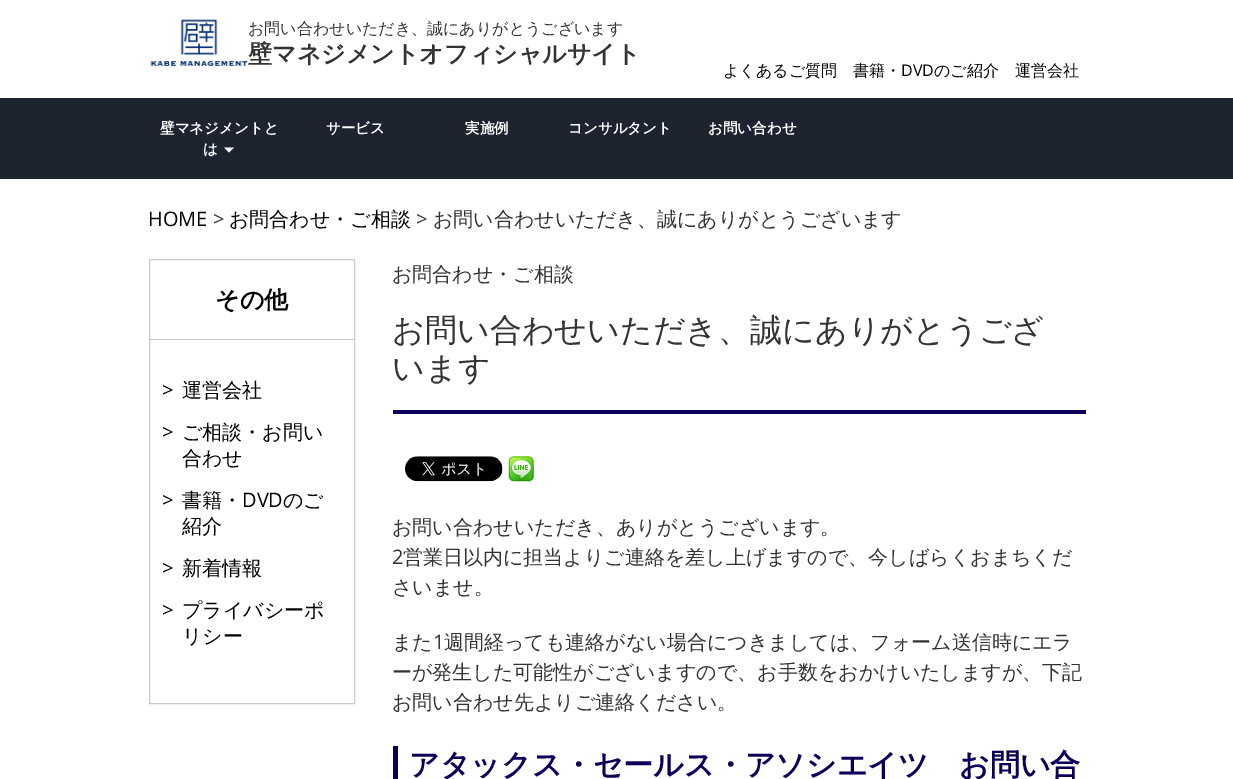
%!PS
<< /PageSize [1233 779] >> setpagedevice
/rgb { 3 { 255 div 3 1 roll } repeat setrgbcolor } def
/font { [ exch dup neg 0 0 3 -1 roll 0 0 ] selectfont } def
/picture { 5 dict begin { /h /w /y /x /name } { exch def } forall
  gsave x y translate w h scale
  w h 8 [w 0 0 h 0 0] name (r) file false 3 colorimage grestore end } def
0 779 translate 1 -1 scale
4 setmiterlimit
255 255 255 rgb
0 0 1233 779 rectfill
(img/1.rgb) 150 19 98 48 picture
29 35 47 rgb
0 98 1233 81 rectfill
255 255 255 rgb
224 147.5 moveto 234 147.5 lineto 229 152.5 lineto closepath fill
204 204 204 rgb
149.5 259.5 205 444 rectstroke
150 339 204 1 rectfill
10 0 90 rgb
393 410 693 4 rectfill
(img/2.rgb) 405 456 98 26 picture
(img/3.rgb) 508 456 26 26 picture
393 746 5 33 rectfill
/WenQuanYiZenHei-Medium 16 font
51 51 51 rgb
248 34 moveto (お問い合わせいただき、誠にありがとうございます) show
/WenQuanYiZenHei-Bold 24 font
248 62 moveto (壁マネジメントオフィシャルサイト) show
/WenQuanYiZenHei-Medium 16 font
0 0 0 rgb
723 76 moveto (よくあるご質問) show
853 76 moveto (書籍・) show
/OpenSans-Regular 16 font
901 76 moveto (DVD) show
/WenQuanYiZenHei-Medium 16 font
934 76 moveto (のご紹介) show
1015 76 moveto (運営会社) show
/WenQuanYiZenHei-Bold 14.5 font
255 255 255 rgb
[
  [(壁マネジメントと) 160 133]
  [(は) 203 154]
  [(サービス) 326 133]
  [(実施例) 465 133]
  [(コンサルタント) 568 133]
  [(お問い合わせ) 708 133]
] { aload pop moveto show } forall
/OpenSans-Regular 20 font
0 0 0 rgb
148 226 moveto (HOME) show
51 51 51 rgb
213 226 moveto (>) show
/WenQuanYiZenHei-Medium 20 font
0 0 0 rgb
229 226 moveto (お問合わせ・ご相談) show
/OpenSans-Regular 20 font
51 51 51 rgb
416 226 moveto (>) show
/WenQuanYiZenHei-Medium 20 font
433 226 moveto (お問い合わせいただき、誠にありがとうございます) show
/WenQuanYiZenHei-Bold 24 font
0 0 0 rgb
215 308 moveto (その他) show
/OpenSans-Regular 20 font
162 397 moveto (>) show
/WenQuanYiZenHei-Medium 20 font
182 397 moveto (運営会社) show
/OpenSans-Regular 20 font
162 439 moveto (>) show
/WenQuanYiZenHei-Medium 20 font
182 439 moveto (ご相談・お問い) show
182 465 moveto (合わせ) show
/OpenSans-Regular 20 font
162 507 moveto (>) show
/WenQuanYiZenHei-Medium 20 font
182 507 moveto (書籍・) show
/OpenSans-Regular 20 font
242 507 moveto (DVD) show
/WenQuanYiZenHei-Medium 20 font
283 507 moveto (のご) show
182 533 moveto (紹介) show
/OpenSans-Regular 20 font
162 575 moveto (>) show
/WenQuanYiZenHei-Medium 20 font
182 575 moveto (新着情報) show
/OpenSans-Regular 20 font
162 617 moveto (>) show
/WenQuanYiZenHei-Medium 20 font
182 617 moveto (プライバシーポ) show
182 643 moveto (リシー) show
51 51 51 rgb
392 281 moveto (お問合わせ・ご相談) show
/WenQuanYiZenHei-Medium 32 font
392 341 moveto (お問い合わせいただき、誠にありがとうござ) show
392 379 moveto (います) show
/WenQuanYiZenHei-Medium 20 font
392 534 moveto (お問い合わせいただき、ありがとうございます。) show
/OpenSans-Regular 20 font
392 564 moveto (2) show
/WenQuanYiZenHei-Medium 20 font
[
  [(営業日以内に担当よりご連絡を差し上げますので、今しばらくおまちくだ) 403 564]
  [(さいませ。) 392 594]
  [(また) 392 649]
] { aload pop moveto show } forall
/OpenSans-Regular 20 font
433 649 moveto (1) show
/WenQuanYiZenHei-Medium 20 font
[
  [(週間経っても連絡がない場合につきましては、フォーム送信時にエラ) 444 649]
  [(ーが発生した可能性がございますので、お手数をおかけいたしますが、下記) 392 679]
  [(お問い合わせ先よりご連絡ください。) 392 709]
] { aload pop moveto show } forall
/WenQuanYiZenHei-Bold 30 font
10 0 90 rgb
409 775 moveto (アタックス・セールス・アソシエイツ　お問い合) show
showpage
